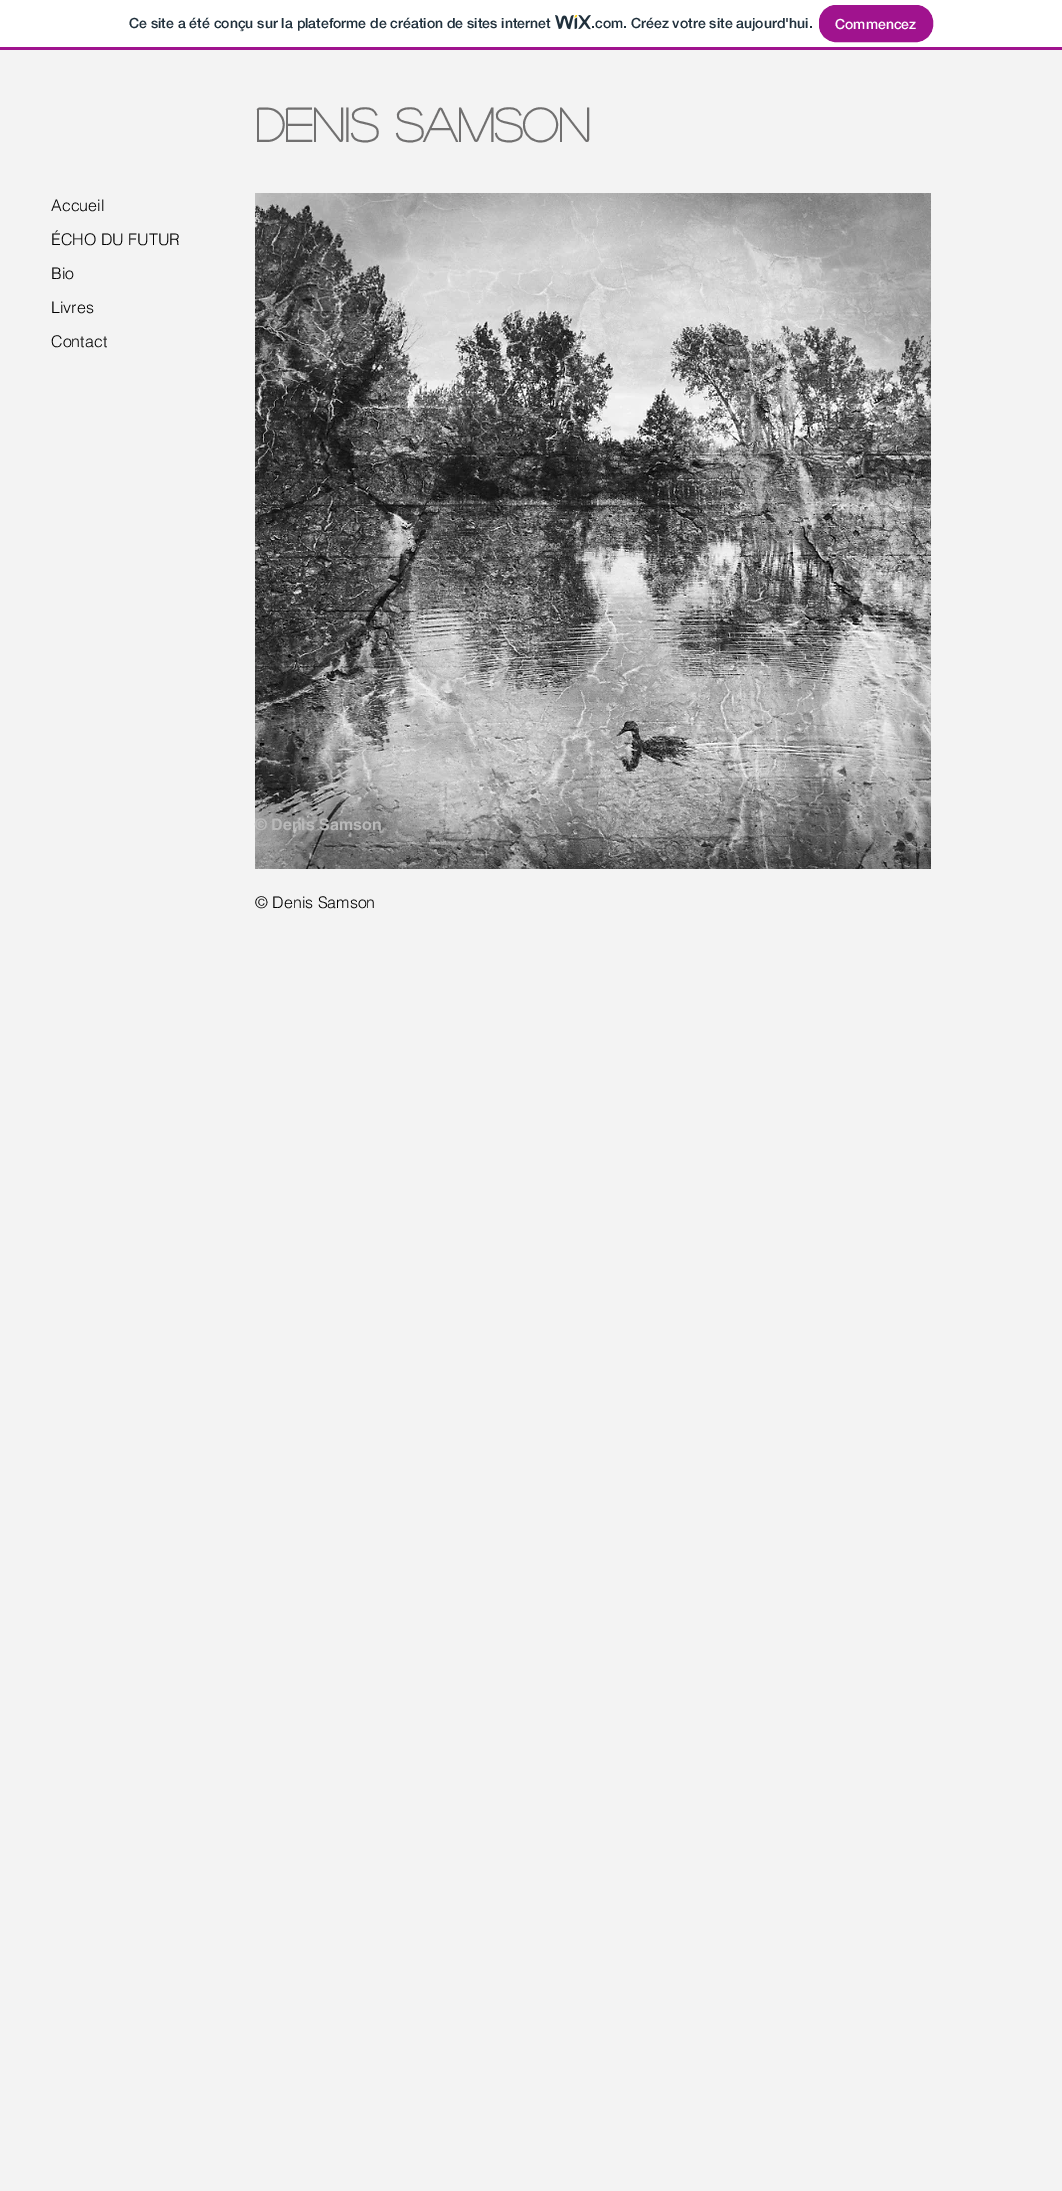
%!PS
<< /PageSize [1062 2191] >> setpagedevice
/rgb { 3 { 255 div 3 1 roll } repeat setrgbcolor } def
/font { [ exch dup neg 0 0 3 -1 roll 0 0 ] selectfont } def
/roundrect { 5 dict begin { /r /h /w /y /x } { exch def } forall
  x r add y moveto x w add y 2 copy h add r arct x w add y h add x 1 index r arct
  x y h add x y r arct x y 2 copy exch w add exch r arct closepath end } def
/picture { 5 dict begin { /h /w /y /x /name } { exch def } forall
  gsave x y translate w h scale
  w h 8 [w 0 0 h 0 0] name (r) file false 3 colorimage grestore end } def
0 2191 translate 1 -1 scale
4 setmiterlimit
255 255 255 rgb
0 0 1062 2191 rectfill
160 19 142 rgb
0 47 1062 3 rectfill
(img/1.rgb) 555 15 36 15 picture
819.5 5.5 113 36 16.5 roundrect gsave fill grestore
stroke
243 243 243 rgb
0 50 1062 2141 rectfill
(img/2.rgb) 255 193 676 676 picture
/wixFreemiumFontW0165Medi-Medium 14 font
32 48 60 rgb
129 28 moveto (Ce site a été conçu sur la plateforme de création de sites internet) show
591 28 moveto (.com. Créez votre site aujourd'hui.) show
255 255 255 rgb
835 29 moveto (Commencez) show
/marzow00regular-Bold 47 font
113 112 112 rgb
255 142 moveto (Denis Samson) show
/helvetica-Light 16 font
0 0 0 rgb
[
  [(Accueil) 51 211]
  [(ÉCHO DU FUTUR) 51 245]
  [(Bio) 51 279]
  [(Livres) 51 313]
  [(Contact) 51 347]
] { aload pop moveto show } forall
/helvetica-Bold 16 font
185 185 185 rgb
255 830 moveto (© Denis Samson) show
/helvetica-Light 16 font
0 0 0 rgb
255 908 moveto (© Denis Samson) show
showpage
